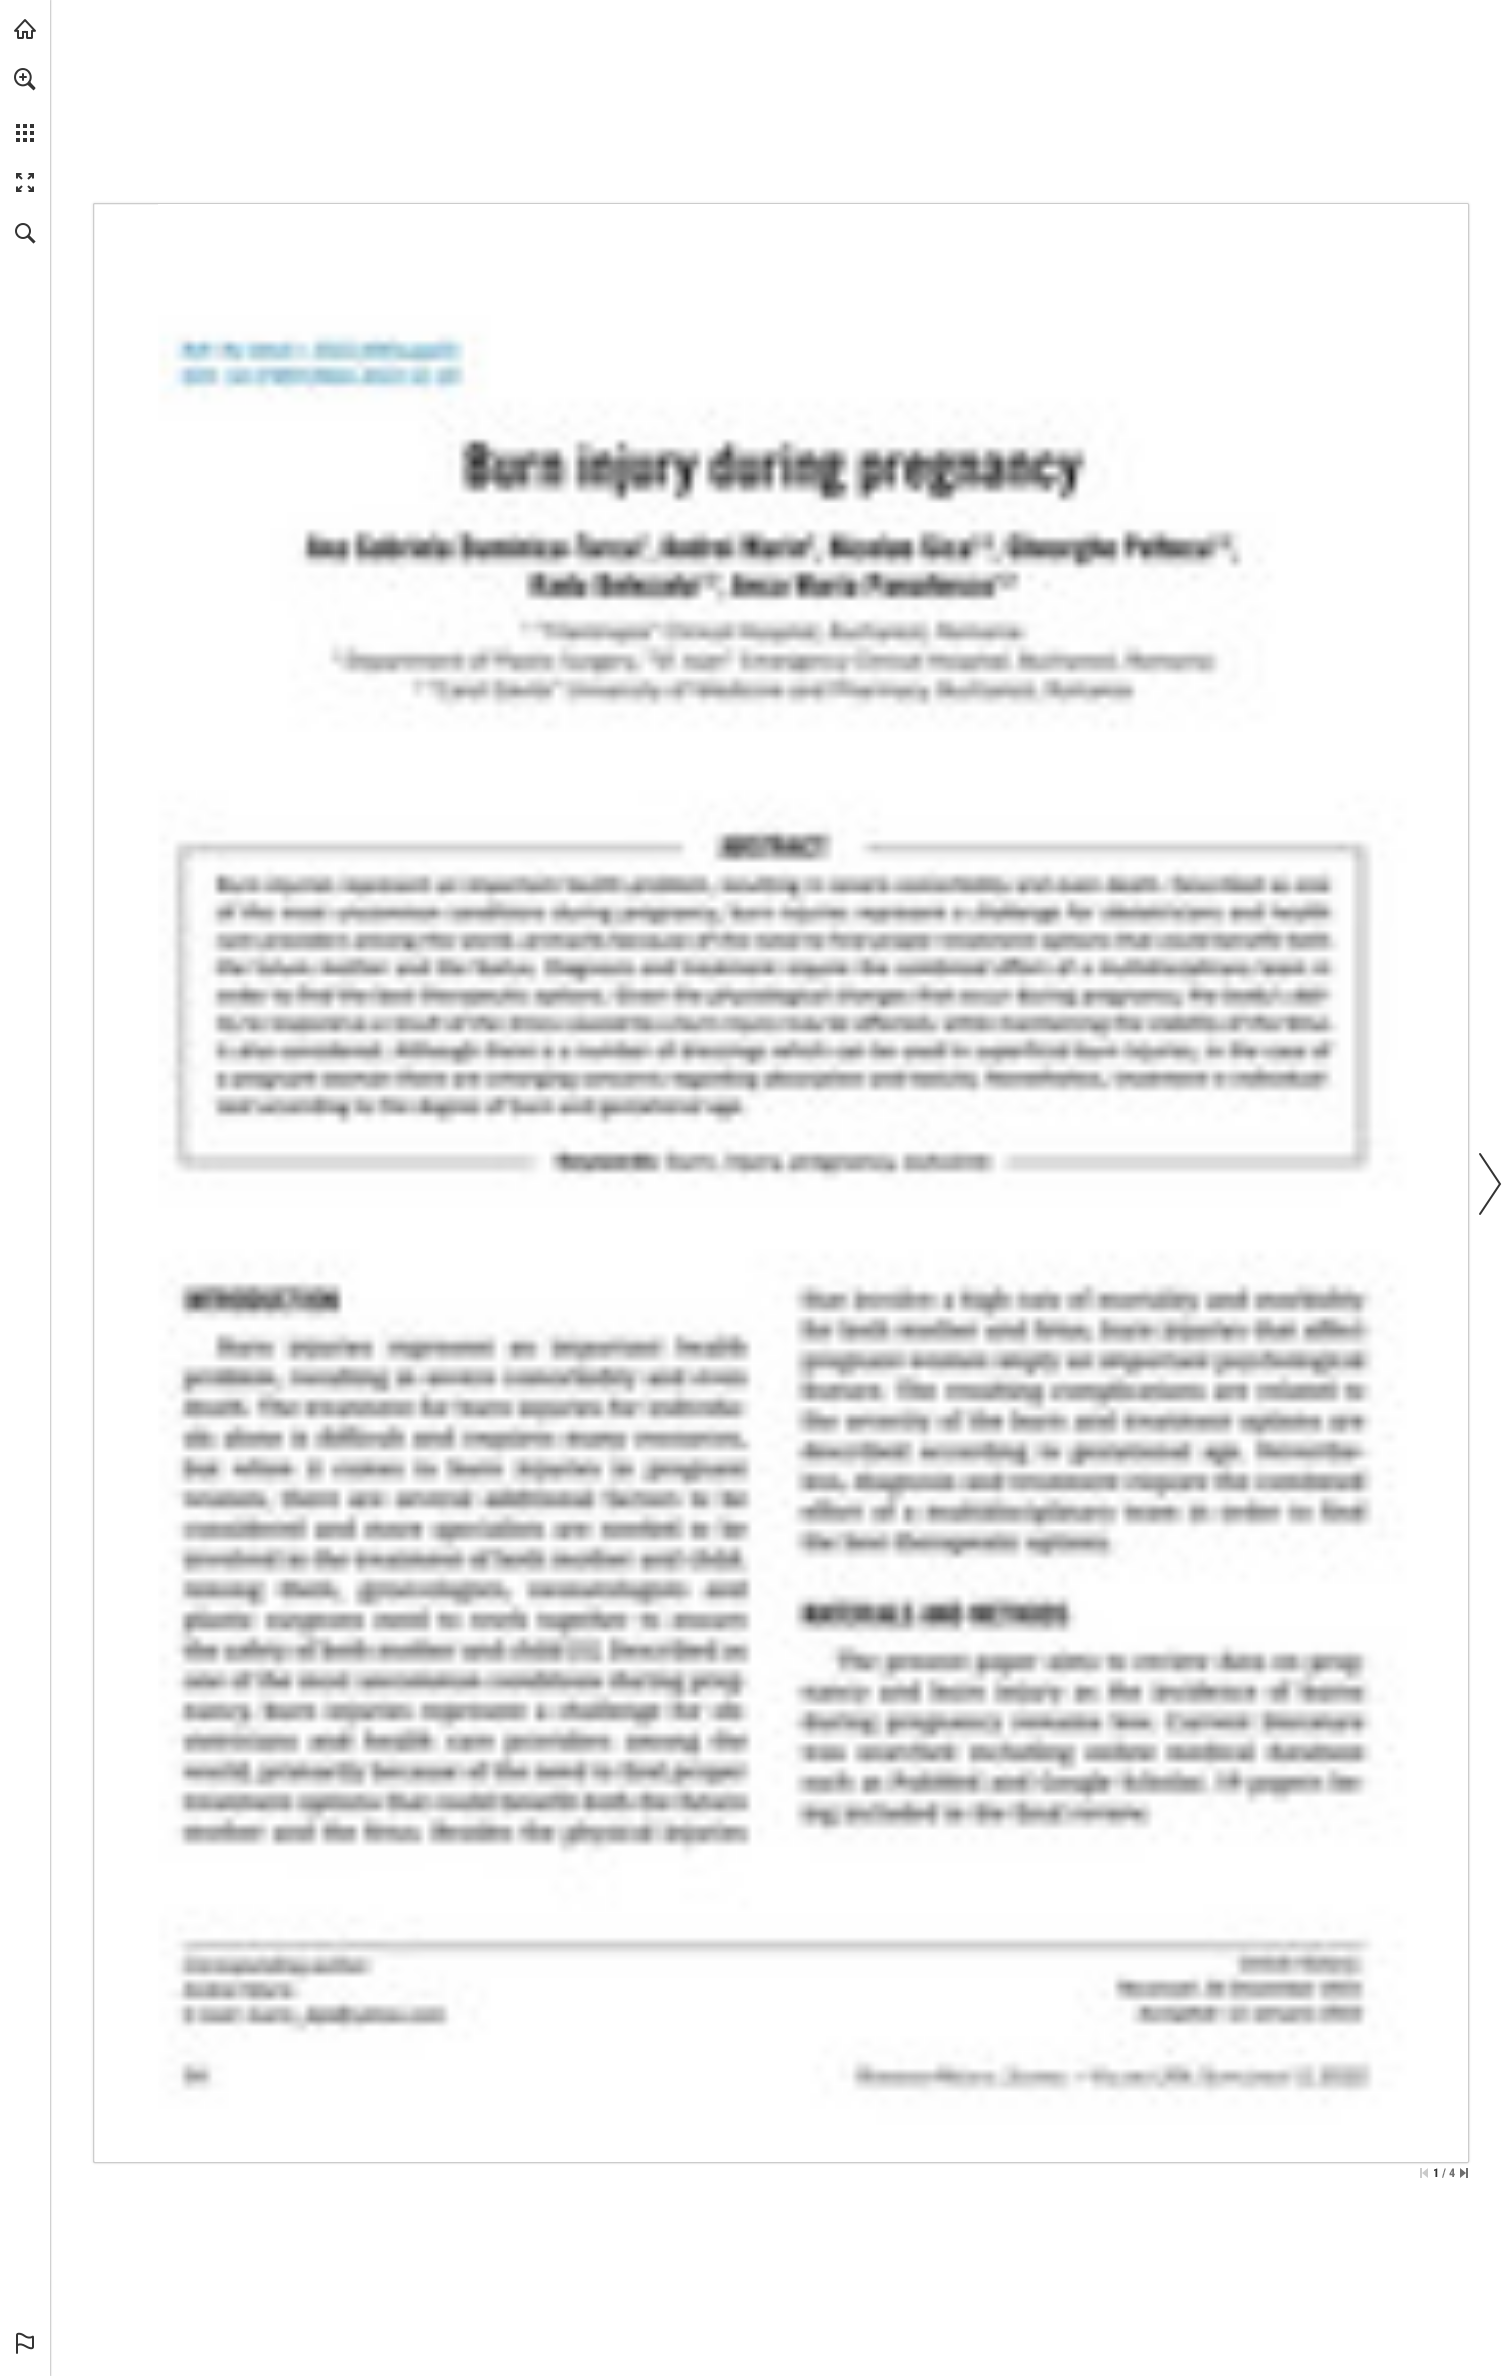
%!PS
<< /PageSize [1511 2376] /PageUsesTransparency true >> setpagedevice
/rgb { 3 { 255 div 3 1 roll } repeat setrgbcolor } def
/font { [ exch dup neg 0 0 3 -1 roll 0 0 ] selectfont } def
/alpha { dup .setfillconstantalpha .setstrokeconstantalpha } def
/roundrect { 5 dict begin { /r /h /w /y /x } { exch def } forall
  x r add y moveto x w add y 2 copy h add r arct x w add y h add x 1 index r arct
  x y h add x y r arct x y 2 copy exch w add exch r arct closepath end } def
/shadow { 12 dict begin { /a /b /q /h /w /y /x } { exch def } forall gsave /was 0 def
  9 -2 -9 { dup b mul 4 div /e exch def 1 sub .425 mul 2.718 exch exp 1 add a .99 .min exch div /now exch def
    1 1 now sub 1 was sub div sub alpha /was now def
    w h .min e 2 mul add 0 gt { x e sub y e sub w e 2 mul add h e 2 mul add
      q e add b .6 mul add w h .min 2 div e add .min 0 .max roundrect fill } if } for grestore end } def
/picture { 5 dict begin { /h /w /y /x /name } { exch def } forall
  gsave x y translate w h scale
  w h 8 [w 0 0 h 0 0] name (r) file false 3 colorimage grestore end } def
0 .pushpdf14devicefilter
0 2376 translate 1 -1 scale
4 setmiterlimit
255 255 255 rgb
0 0 1511 2376 rectfill
0 0 0 rgb
1 0 50 2376 0 0.5 0.2 shadow
255 255 255 rgb
0 0 50 2376 rectfill
(img/1.rgb) 14 19 22 20 picture
(img/2.rgb) 14 68 22 23 picture
(img/3.rgb) 16 124 18 18 picture
(img/4.rgb) 16 173 18 19 picture
(img/5.rgb) 15 223 21 21 picture
(img/6.rgb) 16 2332 18 22 picture
18 18 18 rgb
92 202 1378 1962 3 1 0.05 shadow
255 255 255 rgb
93.5 203.5 1375 1959 1.5 roundrect gsave fill grestore
204 204 204 rgb
stroke
(img/7.rgb) 158 204 1310 1958 picture
(img/8.rgb) 1479 1153 23 62 picture
(img/9.rgb) 1420 2168 8 10 picture
(img/10.rgb) 1460 2168 8 10 picture
/RobotoCondensed-Bold 12 font
51 51 51 rgb
1433 2177 moveto (1) show
112 112 112 rgb
1442 2177 moveto (/ 4) show
.poppdf14devicefilter showpage
